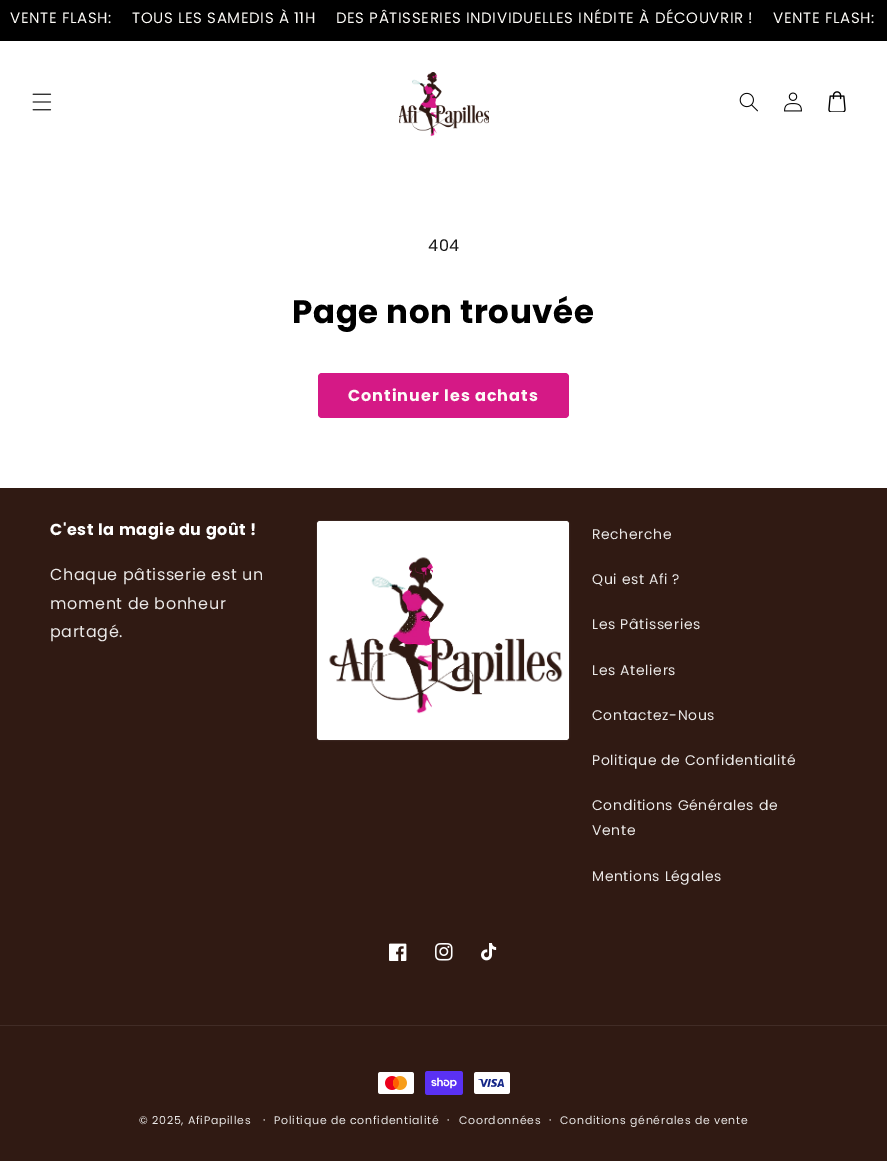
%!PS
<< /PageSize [887 1161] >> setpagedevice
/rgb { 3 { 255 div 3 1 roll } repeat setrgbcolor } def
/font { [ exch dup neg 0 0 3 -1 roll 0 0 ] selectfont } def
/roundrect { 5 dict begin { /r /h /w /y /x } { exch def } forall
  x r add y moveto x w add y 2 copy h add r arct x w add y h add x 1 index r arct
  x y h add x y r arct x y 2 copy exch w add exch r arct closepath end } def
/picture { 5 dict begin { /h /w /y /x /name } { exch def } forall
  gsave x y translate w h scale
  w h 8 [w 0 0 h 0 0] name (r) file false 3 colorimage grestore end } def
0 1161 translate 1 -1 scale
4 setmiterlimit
255 255 255 rgb
0 0 887 1161 rectfill
0 0 0 rgb
0 0 887 41 rectfill
(img/1.rgb) 32 93 20 18 picture
(img/2.rgb) 399 72 90 65 picture
(img/3.rgb) 739 92 19 20 picture
(img/4.rgb) 784 92 18 20 picture
(img/5.rgb) 828 91 18 21 picture
213 25 134 rgb
318 373 251 45 4 roundrect fill
48 26 19 rgb
0 488 887 673 rectfill
58 37 31 rgb
316.5 520.5 253 220 3.5 roundrect stroke
255 255 255 rgb
317 521 252 219 3 roundrect fill
(img/6.rgb) 329 557 234 157 picture
(img/7.rgb) 389 943 18 18 picture
(img/8.rgb) 435 943 18 18 picture
(img/9.rgb) 481 943 16 18 picture
65 44 38 rgb
0 1025 887 1 rectfill
(img/10.rgb) 378 1072 36 22 picture
(img/11.rgb) 425 1071 38 24 picture
(img/12.rgb) 474 1072 36 22 picture
/Poppins-Regular 15 font
253 251 247 rgb
10 23 moveto 0.6 0 (VENTE FLASH:) ashow
132 23 moveto 0.6 0 (TOUS LES SAMEDIS À 11H) ashow
336 23 moveto 0.6 0 (DES PÂTISSERIES INDIVIDUELLES INÉDITE À DÉCOUVRIR !) ashow
773 23 moveto 0.6 0 (VENTE FLASH:) ashow
/Poppins-Regular 16 font
26 26 26 rgb
428 251 moveto 0.6 0 (404) ashow
/Poppins-Bold 32.5 font
0 0 0 rgb
292 323 moveto 0.6 0 (Page non trouvée) ashow
/Poppins-Bold 16 font
253 251 247 rgb
348 401 moveto 1 0 (Continuer les achats) ashow
255 255 255 rgb
50 535 moveto 0.6 0 (C'est la magie du goût !) ashow
/Poppins-Regular 16 font
234 232 231 rgb
50 580 moveto 0.6 0 (Chaque pâtisserie est un) ashow
50 609 moveto 0.6 0 (moment de bonheur) ashow
50 637 moveto 0.6 0 (partagé.) ashow
/Poppins-Regular 14 font
592 539 moveto 0.6 0 (Recherche) ashow
592 584 moveto 0.6 0 (Qui est Afi ?) ashow
592 629 moveto 0.6 0 (Les Pâtisseries) ashow
592 675 moveto 0.6 0 (Les Ateliers) ashow
592 720 moveto 0.6 0 (Contactez-Nous) ashow
592 765 moveto 0.6 0 (Politique de Confidentialité) ashow
592 810 moveto 0.6 0 (Conditions Générales de) ashow
592 835 moveto 0.6 0 (Vente) ashow
592 881 moveto 0.6 0 (Mentions Légales) ashow
/Poppins-Regular 11 font
139 1124 moveto 0.7 0 (© 2025, AfiPapilles) ashow
/Poppins-Regular 12 font
263 1124 moveto 0.7 0 (·) ashow
/Poppins-Regular 11 font
274 1124 moveto 0.7 0 (Politique de confidentialité) ashow
/Poppins-Regular 12 font
447 1124 moveto 0.7 0 (·) ashow
/Poppins-Regular 11 font
459 1124 moveto 0.7 0 (Coordonnées) ashow
/Poppins-Regular 12 font
549 1124 moveto 0.7 0 (·) ashow
/Poppins-Regular 11 font
560 1124 moveto 0.7 0 (Conditions générales de vente) ashow
showpage
